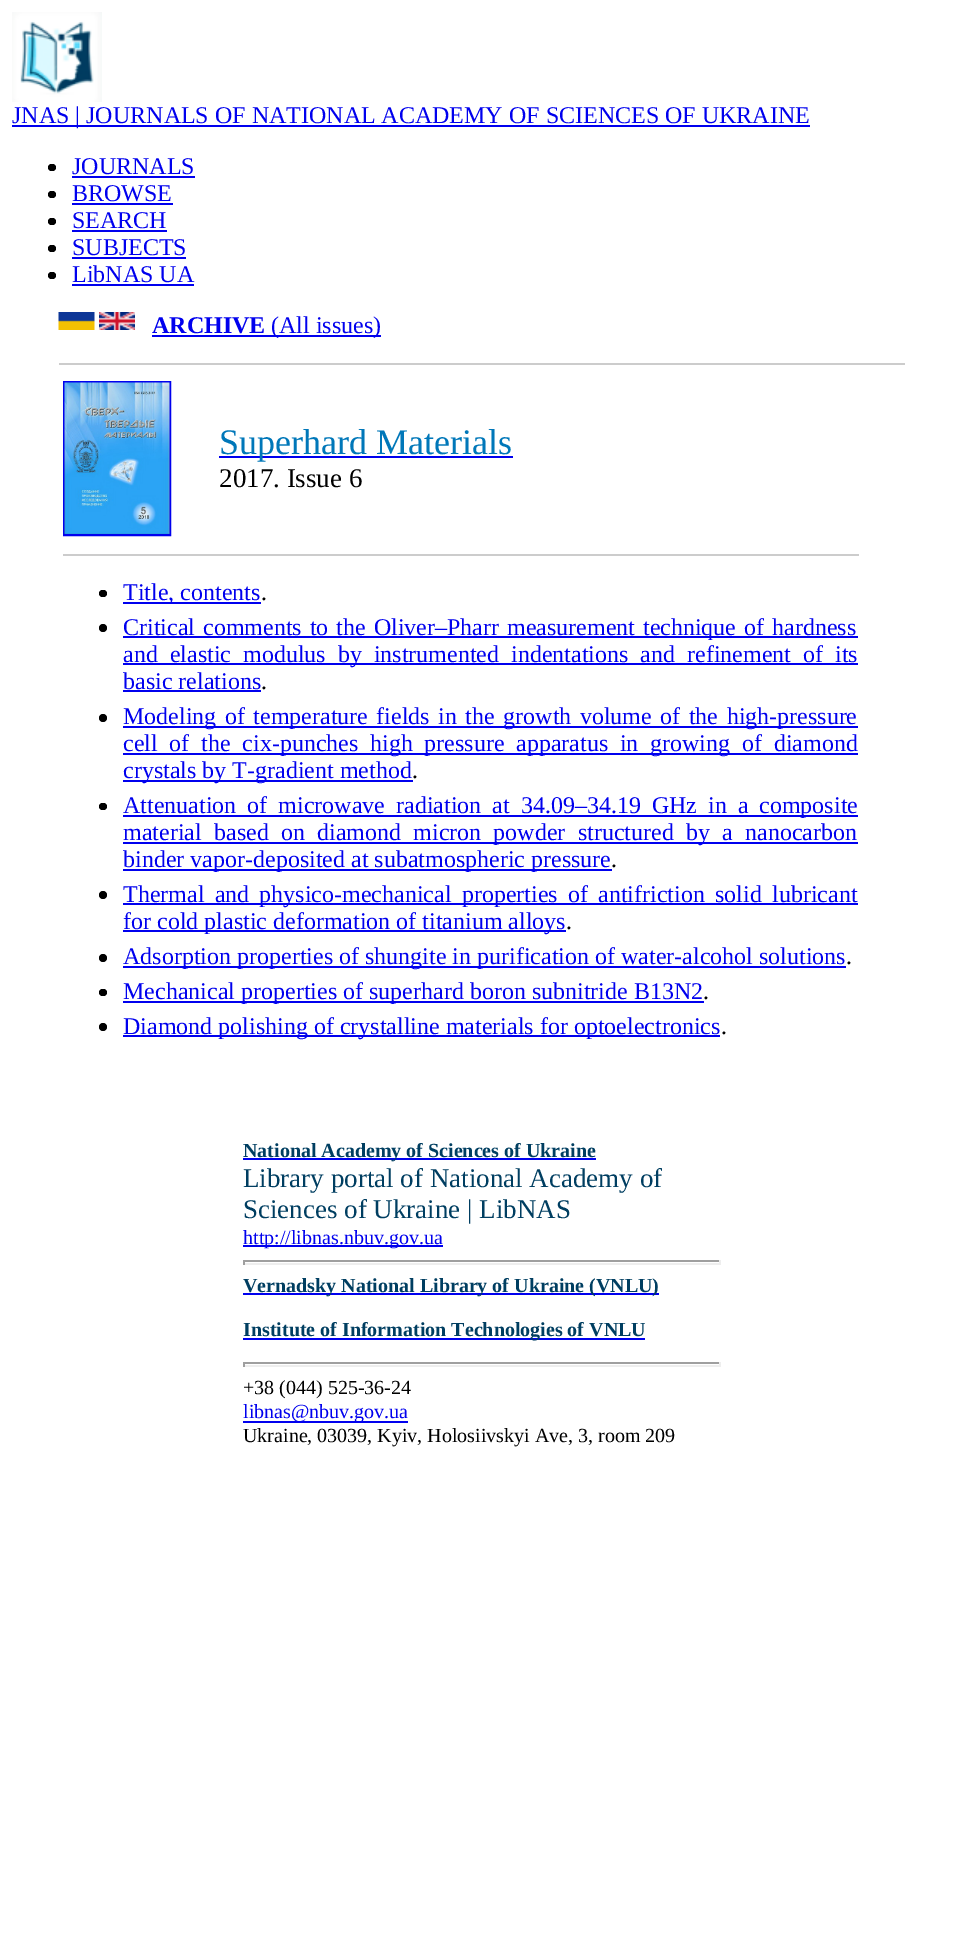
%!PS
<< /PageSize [962 1957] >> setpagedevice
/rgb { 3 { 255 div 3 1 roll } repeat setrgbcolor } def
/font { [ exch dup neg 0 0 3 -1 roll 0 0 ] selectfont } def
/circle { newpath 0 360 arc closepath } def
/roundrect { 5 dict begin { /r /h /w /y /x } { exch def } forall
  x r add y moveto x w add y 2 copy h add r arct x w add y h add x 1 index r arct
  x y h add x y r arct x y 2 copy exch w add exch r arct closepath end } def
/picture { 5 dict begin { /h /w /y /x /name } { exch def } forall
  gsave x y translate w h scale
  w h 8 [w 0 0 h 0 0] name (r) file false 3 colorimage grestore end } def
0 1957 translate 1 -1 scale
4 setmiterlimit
255 255 255 rgb
0 0 962 1957 rectfill
(img/1.rgb) 12 12 90 90 picture
0 0 238 rgb
12 125 798 2 rectfill
0 0 0 rgb
48 164 8 7 3.5 roundrect fill
0 0 238 rgb
72 176 123 2 rectfill
0 0 0 rgb
48 191 8 7 3.5 roundrect fill
0 0 238 rgb
72 203 101 2 rectfill
0 0 0 rgb
48 218 8 7 3.5 roundrect fill
0 0 238 rgb
72 230 95 2 rectfill
0 0 0 rgb
48 245 8 7 3.5 roundrect fill
0 0 238 rgb
72 257 114 2 rectfill
0 0 0 rgb
48 272 8 7 3.5 roundrect fill
0 0 238 rgb
72 284 122 2 rectfill
(img/2.rgb) 58 312 37 18 picture
(img/3.rgb) 99 312 36 18 picture
152 335 229 2 rectfill
204 204 204 rgb
59 363 846 2 rectfill
0 0 238 rgb
2 setlinewidth
64 382 106 153 rectstroke
(img/4.rgb) 64 382 106 152 picture
219 456 294 2 rectfill
204 204 204 rgb
63 554 796 2 rectfill
0 0 0 rgb
99 590 8 7 3.5 roundrect fill
0 0 238 rgb
123 602 138 2 rectfill
0 0 0 rgb
103 628 4 circle fill
[
  [123 636 735 2 0 0 238]
  [123 663 735 2 0 0 238]
  [123 690 138 2 0 0 238]
] { aload pop rgb rectfill } forall
0 0 0 rgb
103 718 4 circle fill
[
  [123 726 735 2 0 0 238]
  [123 753 735 2 0 0 238]
  [123 780 290 2 0 0 238]
] { aload pop rgb rectfill } forall
0 0 0 rgb
99 803 8 7 3.5 roundrect fill
[
  [123 815 735 2 0 0 238]
  [123 842 735 2 0 0 238]
  [123 869 489 2 0 0 238]
] { aload pop rgb rectfill } forall
0 0 0 rgb
103 895 4 circle fill
0 0 238 rgb
123 903 735 2 rectfill
123 930 443 2 rectfill
0 0 0 rgb
103 958 4 circle fill
0 0 238 rgb
123 966 723 2 rectfill
0 0 0 rgb
99 989 8 7 3.5 roundrect fill
0 0 238 rgb
123 1001 581 2 rectfill
0 0 0 rgb
103 1027 4 circle fill
[
  [123 1035 597 2 0 0 238]
  [243 1158 353 2 0 0 238]
  [243 1245 200 2 0 0 238]
  [243 1260 477 2 159 159 159]
  [719 1260 2 5 238 238 238]
  [243 1263 477 2 238 238 238]
  [243 1260 2 5 159 159 159]
  [243 1293 416 2 0 0 238]
  [243 1338 402 2 0 0 238]
  [243 1362 477 2 159 159 159]
  [719 1362 2 5 238 238 238]
  [243 1365 477 2 238 238 238]
  [243 1362 2 5 159 159 159]
  [243 1421 165 2 0 0 238]
] { aload pop rgb rectfill } forall
/LiberationSerif-Regular 24 font
[
  [(JNAS | JOURNALS OF NATIONAL ACADEMY OF SCIENCES OF UKRAINE) 12 123]
  [(JOURNALS) 72 174]
  [(BROWSE) 72 201]
  [(SEARCH) 72 228]
  [(SUBJECTS) 72 255]
  [(LibNAS UA) 72 282]
] { aload pop moveto show } forall
/LiberationSerif-Bold 24 font
152 333 moveto (ARCHIVE) show
/LiberationSerif-Regular 24 font
271 333 moveto (\(All issues\)) show
/LiberationSerif-Regular 36 font
0 119 185 rgb
219 454 moveto (Superhard Materials) show
/LiberationSerif-Regular 27 font
0 0 0 rgb
219 487 moveto (2017. Issue 6) show
/LiberationSerif-Regular 24 font
0 0 238 rgb
123 600 moveto (Title, contents) show
0 0 0 rgb
261 600 moveto (.) show
0 0 238 rgb
123 635 moveto 2 0 32 (Critical comments to the Oliver–Pharr measurement technique of hardness) widthshow
123 662 moveto 6 0 32 (and elastic modulus by instrumented indentations and refinement of its) widthshow
123 689 moveto (basic relations) show
0 0 0 rgb
261 689 moveto (.) show
0 0 238 rgb
123 724 moveto 2.5 0 32 (Modeling of temperature fields in the growth volume of the high-pressure) widthshow
123 751 moveto 5.75 0 32 (cell of the cix-punches high pressure apparatus in growing of diamond) widthshow
123 778 moveto (crystals by T-gradient method) show
0 0 0 rgb
412 778 moveto (.) show
0 0 238 rgb
123 813 moveto 5 0 32 (Attenuation of microwave radiation at 34.09–34.19 GHz in a composite) widthshow
123 840 moveto 6.25 0 32 (material based on diamond micron powder structured by a nanocarbon) widthshow
123 867 moveto (binder vapor-deposited at subatmospheric pressure) show
0 0 0 rgb
611 867 moveto (.) show
0 0 238 rgb
123 902 moveto 4.25 0 32 (Thermal and physico-mechanical properties of antifriction solid lubricant) widthshow
123 929 moveto (for cold plastic deformation of titanium alloys) show
0 0 0 rgb
566 929 moveto (.) show
0 0 238 rgb
123 964 moveto (Adsorption properties of shungite in purification of water-alcohol solutions) show
0 0 0 rgb
846 964 moveto (.) show
0 0 238 rgb
123 999 moveto (Mechanical properties of superhard boron subnitride B13N2) show
0 0 0 rgb
703 999 moveto (.) show
0 0 238 rgb
123 1034 moveto (Diamond polishing of crystalline materials for optoelectronics) show
0 0 0 rgb
721 1034 moveto (.) show
/LiberationSerif-Bold 20 font
0 62 97 rgb
243 1157 moveto (National Academy of Sciences of Ukraine) show
/LiberationSerif-Regular 27 font
243 1187 moveto (Library portal of National Academy of) show
243 1218 moveto (Sciences of Ukraine | LibNAS) show
/LiberationSerif-Regular 20 font
0 0 238 rgb
243 1244 moveto (http://libnas.nbuv.gov.ua) show
/LiberationSerif-Bold 20 font
0 62 97 rgb
243 1292 moveto (Vernadsky National Library of Ukraine \(VNLU\)) show
243 1336 moveto (Institute of Information Technologies of VNLU) show
/LiberationSerif-Regular 20 font
0 0 0 rgb
243 1394 moveto (+38 \(044\) 525-36-24) show
0 0 238 rgb
243 1418 moveto (libnas@nbuv.gov.ua) show
0 0 0 rgb
243 1442 moveto (Ukraine, 03039, Kyiv, Holosiivskyi Ave, 3, room 209) show
showpage
